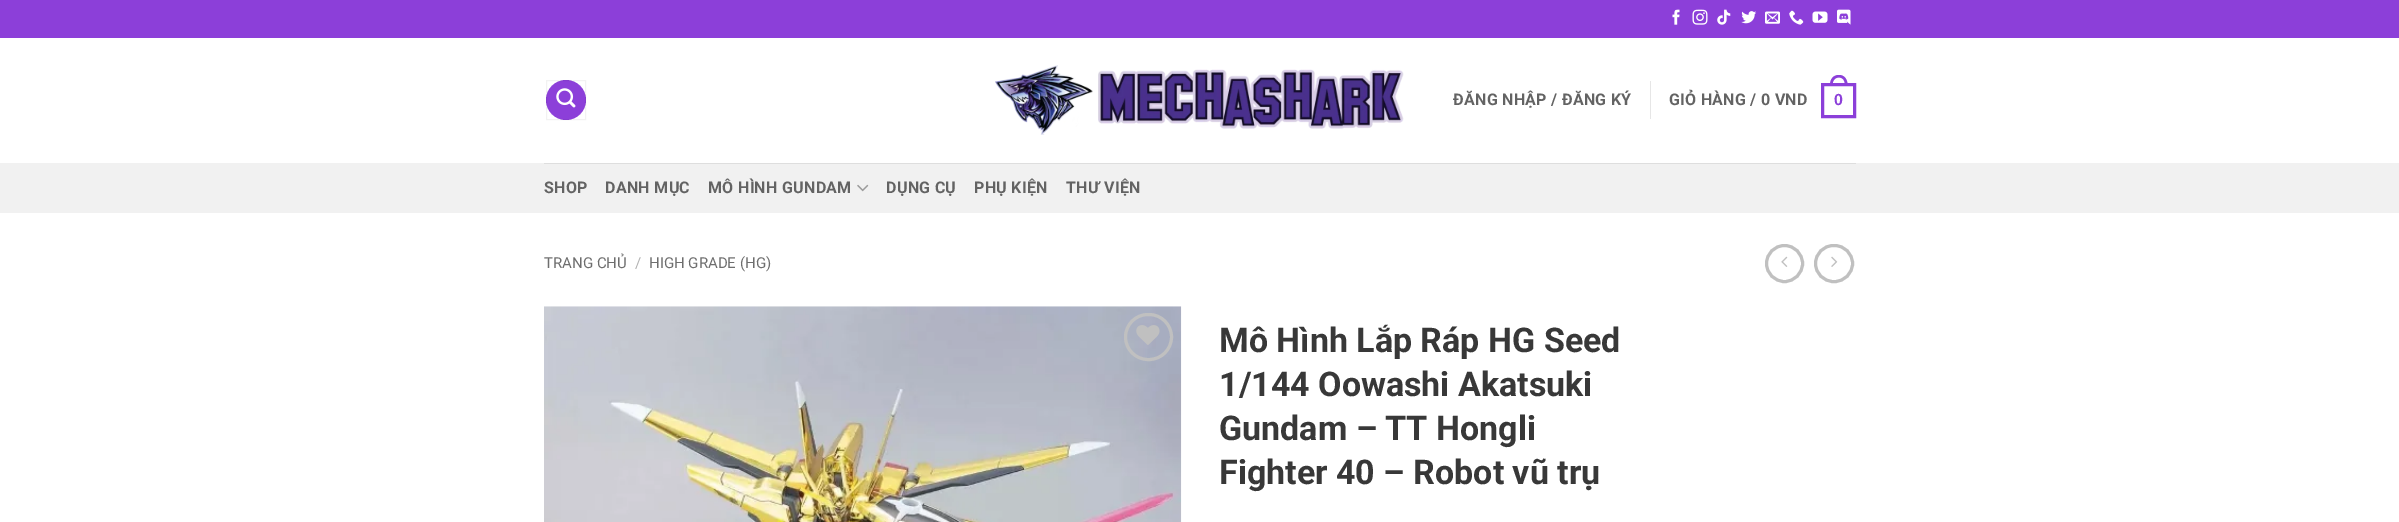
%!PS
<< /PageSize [2399 522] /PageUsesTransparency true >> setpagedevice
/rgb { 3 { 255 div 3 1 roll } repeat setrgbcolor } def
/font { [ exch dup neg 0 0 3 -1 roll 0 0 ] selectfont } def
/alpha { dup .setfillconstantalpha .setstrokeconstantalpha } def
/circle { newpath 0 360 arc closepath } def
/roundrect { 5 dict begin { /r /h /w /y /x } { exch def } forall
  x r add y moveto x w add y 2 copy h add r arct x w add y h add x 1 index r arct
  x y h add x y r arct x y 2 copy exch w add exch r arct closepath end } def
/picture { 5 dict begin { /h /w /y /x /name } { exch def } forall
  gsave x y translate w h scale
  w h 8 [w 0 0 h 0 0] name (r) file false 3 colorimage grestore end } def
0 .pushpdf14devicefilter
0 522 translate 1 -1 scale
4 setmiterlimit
255 255 255 rgb
0 0 2399 522 rectfill
140 63 217 rgb
0 0 2399 38 rectfill
(img/1.rgb) 1672 9 8 16 picture
(img/2.rgb) 1692 9 16 16 picture
(img/3.rgb) 1717 9 14 16 picture
(img/4.rgb) 1741 11 16 13 picture
(img/5.rgb) 1765 11 15 13 picture
(img/6.rgb) 1789 10 15 15 picture
(img/7.rgb) 1812 11 16 12 picture
(img/8.rgb) 1837 9 14 16 picture
566 100 20 circle fill
0.05 alpha
0 0 0 rgb
546.5 80.5 39 39 rectstroke
1 alpha
(img/9.rgb) 556 88 20 20 picture
(img/10.rgb) 995 65 409 70 picture
230 230 230 rgb
1650 81 1 38 rectfill
140 63 217 rgb
3 setlinewidth
1822.5 84.5 32 32 rectstroke
1839 75 moveto 1844.5 75 1847.5 79.5 1847.5 85 curveto 1830 85 lineto 1830 79.5 1833 75 1839 75 curveto closepath 1839 77.5 moveto 1843 77.5 1845 81 1845 85 curveto 1832.5 85 lineto 1832.5 81 1834.5 77.5 1839 77.5 curveto closepath eofill
241 241 241 rgb
0 163 2399 50 rectfill
222 222 222 rgb
544 163 1312 1 rectfill
(img/11.rgb) 857 184 12 8 picture
192 192 192 rgb
1784.5 263.5 18 circle stroke
(img/12.rgb) 1781 256 7 11 picture
1815.5 245.5 37 36 18 roundrect stroke
(img/13.rgb) 1831 256 7 11 picture
(img/14.rgb) 544 306 638 216 picture
1125.5 314.5 46 45 22.5 roundrect stroke
(img/15.rgb) 1136 325 24 20 picture
/Roboto-Bold 16 font
99 99 99 rgb
1453 105 moveto 0.3 0 (ĐĂNG NHẬP / ĐĂNG KÝ) ashow
1669 105 moveto 0.3 0 (GIỎ HÀNG / 0 VND) ashow
/LiberationSans-Bold 16 font
140 63 217 rgb
1834 105 moveto 0.3 0 (0) ashow
/Roboto-Bold 16 font
99 99 99 rgb
544 193 moveto 0.3 0 (SHOP) ashow
605 193 moveto 0.3 0 (DANH MỤC) ashow
708 193 moveto 0.3 0 (MÔ HÌNH GUNDAM) ashow
886 193 moveto 0.3 0 (DỤNG CỤ) ashow
974 193 moveto 0.3 0 (PHỤ KIỆN) ashow
1066 193 moveto 0.3 0 (THƯ VIỆN) ashow
/Roboto-Regular 15 font
110 110 110 rgb
544 268 moveto (TRANG CHỦ) show
178 178 178 rgb
635 268 moveto (/) show
110 110 110 rgb
649 268 moveto (HIGH GRADE \(HG\)) show
/Roboto-Bold 34 font
56 56 56 rgb
[
  [(Mô Hình Lắp Ráp HG Seed) 1219 352]
  [(1/144 Oowashi Akatsuki) 1219 396]
  [(Gundam – TT Hongli) 1219 440]
  [(Fighter 40 – Robot vũ trụ) 1219 484]
] { aload pop moveto show } forall
.poppdf14devicefilter showpage
